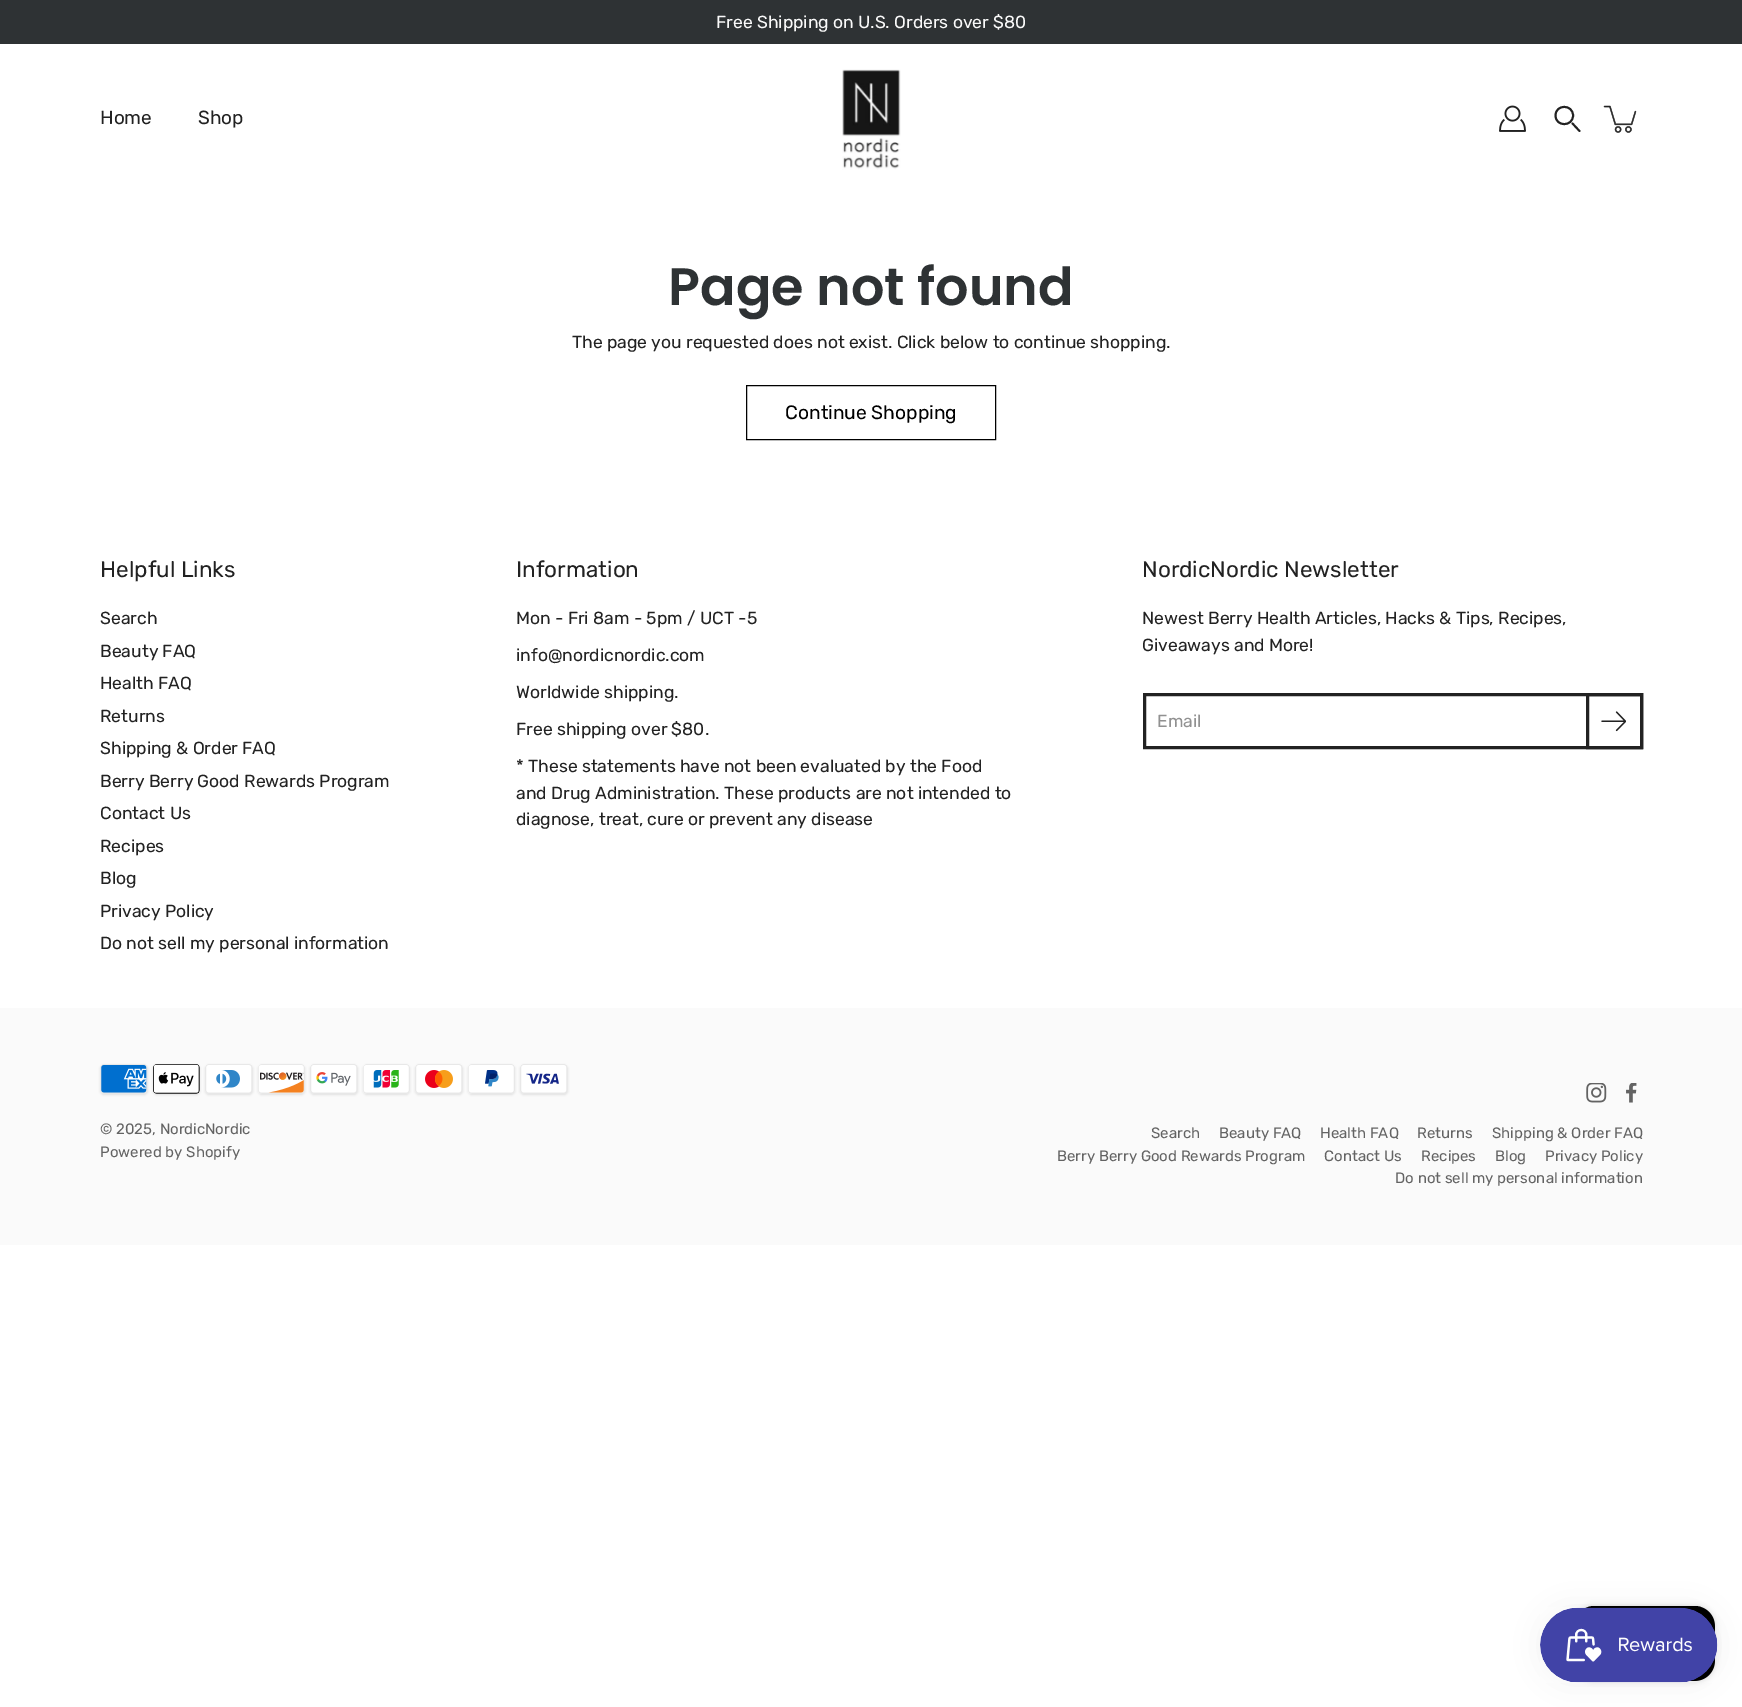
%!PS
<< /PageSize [1742 1707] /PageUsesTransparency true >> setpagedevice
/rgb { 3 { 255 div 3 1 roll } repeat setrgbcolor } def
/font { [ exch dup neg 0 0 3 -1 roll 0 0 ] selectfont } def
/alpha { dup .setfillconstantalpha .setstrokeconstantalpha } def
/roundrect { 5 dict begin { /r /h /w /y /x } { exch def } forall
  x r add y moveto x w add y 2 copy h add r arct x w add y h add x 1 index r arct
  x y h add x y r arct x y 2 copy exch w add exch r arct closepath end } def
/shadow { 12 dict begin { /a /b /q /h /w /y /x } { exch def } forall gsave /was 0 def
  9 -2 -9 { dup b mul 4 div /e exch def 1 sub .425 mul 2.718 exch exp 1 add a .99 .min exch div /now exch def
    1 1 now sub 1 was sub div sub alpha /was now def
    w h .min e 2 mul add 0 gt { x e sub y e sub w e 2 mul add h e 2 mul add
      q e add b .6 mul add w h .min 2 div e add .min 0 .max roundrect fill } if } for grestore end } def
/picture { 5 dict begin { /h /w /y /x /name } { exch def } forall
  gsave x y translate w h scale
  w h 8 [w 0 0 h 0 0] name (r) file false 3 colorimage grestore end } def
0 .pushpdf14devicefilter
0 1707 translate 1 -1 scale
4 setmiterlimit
255 255 255 rgb
0 0 1742 1707 rectfill
46 50 52 rgb
0 0 1742 44 rectfill
(img/1.rgb) 1499 105 27 27 picture
34 34 34 rgb
1.9 setlinewidth
1573 115.5 moveto 1573 127 1555.5 127 1555.5 115.5 curveto 1555.5 104 1573 104 1573 115.5 curveto closepath stroke
1 setlinecap
1572.5 123.5 moveto 1579.5 131 lineto stroke
(img/2.rgb) 1603 105 34 28 picture
(img/3.rgb) 842 69 59 101 picture
0 0 0 rgb
1 setlinewidth
0 setlinecap
746.5 385.5 249 54 rectstroke
34 34 34 rgb
3 setlinewidth
1144.5 694.5 497 53 rectstroke
1587.5 694.5 54 53 rectstroke
(img/4.rgb) 1601 711 25 21 picture
250 250 250 rgb
0 1008 1742 237 rectfill
0 0 0 rgb
100 1065 48 30 4 1 0.1 shadow
(img/5.rgb) 100 1064 48 30 picture
153 1065 47 30 4 1 0.1 shadow
(img/6.rgb) 153 1064 47 30 picture
205 1065 48 30 4 1 0.1 shadow
(img/7.rgb) 205 1064 48 30 picture
258 1065 47 30 4 1 0.1 shadow
(img/8.rgb) 258 1064 47 30 picture
310 1065 48 30 4 1 0.1 shadow
(img/9.rgb) 310 1064 48 30 picture
363 1065 47 30 4 1 0.1 shadow
(img/10.rgb) 363 1064 47 30 picture
415 1065 48 30 4 1 0.1 shadow
(img/11.rgb) 415 1064 48 30 picture
468 1065 47 30 4 1 0.1 shadow
(img/12.rgb) 468 1064 47 30 picture
520 1065 48 30 4 1 0.1 shadow
(img/13.rgb) 520 1064 48 30 picture
(img/14.rgb) 1586 1083 21 20 picture
(img/15.rgb) 1626 1083 11 20 picture
1574 1606 141 75 20 3 0.15 shadow
1574 1606 141 75 20 roundrect fill
1540 1608 178 75 37.5 15.5 0.05 shadow
(img/16.rgb) 1540 1607 178 76 picture
/Rubik-Regular 17.5 font
250 250 250 rgb
716 28 moveto (Free Shipping on U.S. Orders over $80) show
/Rubik-Regular 19 font
34 34 34 rgb
100 124 moveto (Home) show
198 124 moveto (Shop) show
/Poppins-SemiBold 52.5 font
46 50 52 rgb
668 305 moveto (Page not found) show
/Rubik-Regular 17.5 font
34 34 34 rgb
572 348 moveto (The page you requested does not exist. Click below to continue shopping.) show
/Rubik-Regular 19.25 font
0 0 0 rgb
785 419 moveto (Continue Shopping) show
/Rubik-Regular 22.5 font
34 34 34 rgb
100 577 moveto (Helpful Links) show
/Rubik-Regular 17.5 font
[
  [(Search) 100 624]
  [(Beauty FAQ) 100 657]
  [(Health FAQ) 100 689]
  [(Returns) 100 722]
  [(Shipping & Order FAQ) 100 754]
  [(Berry Berry Good Rewards Program) 100 787]
  [(Contact Us) 100 819]
  [(Recipes) 100 852]
  [(Blog) 100 884]
  [(Privacy Policy) 100 917]
  [(Do not sell my personal information) 100 949]
] { aload pop moveto show } forall
/Rubik-Regular 22.5 font
516 577 moveto (Information) show
/Rubik-Regular 17.5 font
[
  [(Mon - Fri 8am - 5pm / UCT -5) 516 624]
  [(info@nordicnordic.com) 516 661]
  [(Worldwide shipping.) 516 698]
  [(Free shipping over $80.) 516 735]
  [(* These statements have not been evaluated by the Food) 516 772]
  [(and Drug Administration. These products are not intended to) 516 799]
  [(diagnose, treat, cure or prevent any disease) 516 825]
] { aload pop moveto show } forall
/Rubik-Regular 22.5 font
1142 577 moveto (NordicNordic Newsletter) show
/Rubik-Regular 17.5 font
1142 624 moveto (Newest Berry Health Articles, Hacks & Tips, Recipes,) show
1142 651 moveto (Giveaways and More!) show
145 145 145 rgb
1157 727 moveto (Email) show
/Rubik-Regular 15 font
99 99 99 rgb
[
  [(© 2025, NordicNordic) 100 1134]
  [(Powered by Shopify) 100 1157]
  [(Search) 1151 1138]
  [(Beauty FAQ) 1219 1138]
  [(Health FAQ) 1320 1138]
  [(Returns) 1417 1138]
  [(Shipping & Order FAQ) 1492 1138]
  [(Berry Berry Good Rewards Program) 1057 1161]
  [(Contact Us) 1324 1161]
  [(Recipes) 1421 1161]
  [(Blog) 1495 1161]
  [(Privacy Policy) 1545 1161]
  [(Do not sell my personal information) 1395 1183]
] { aload pop moveto show } forall
.poppdf14devicefilter showpage
